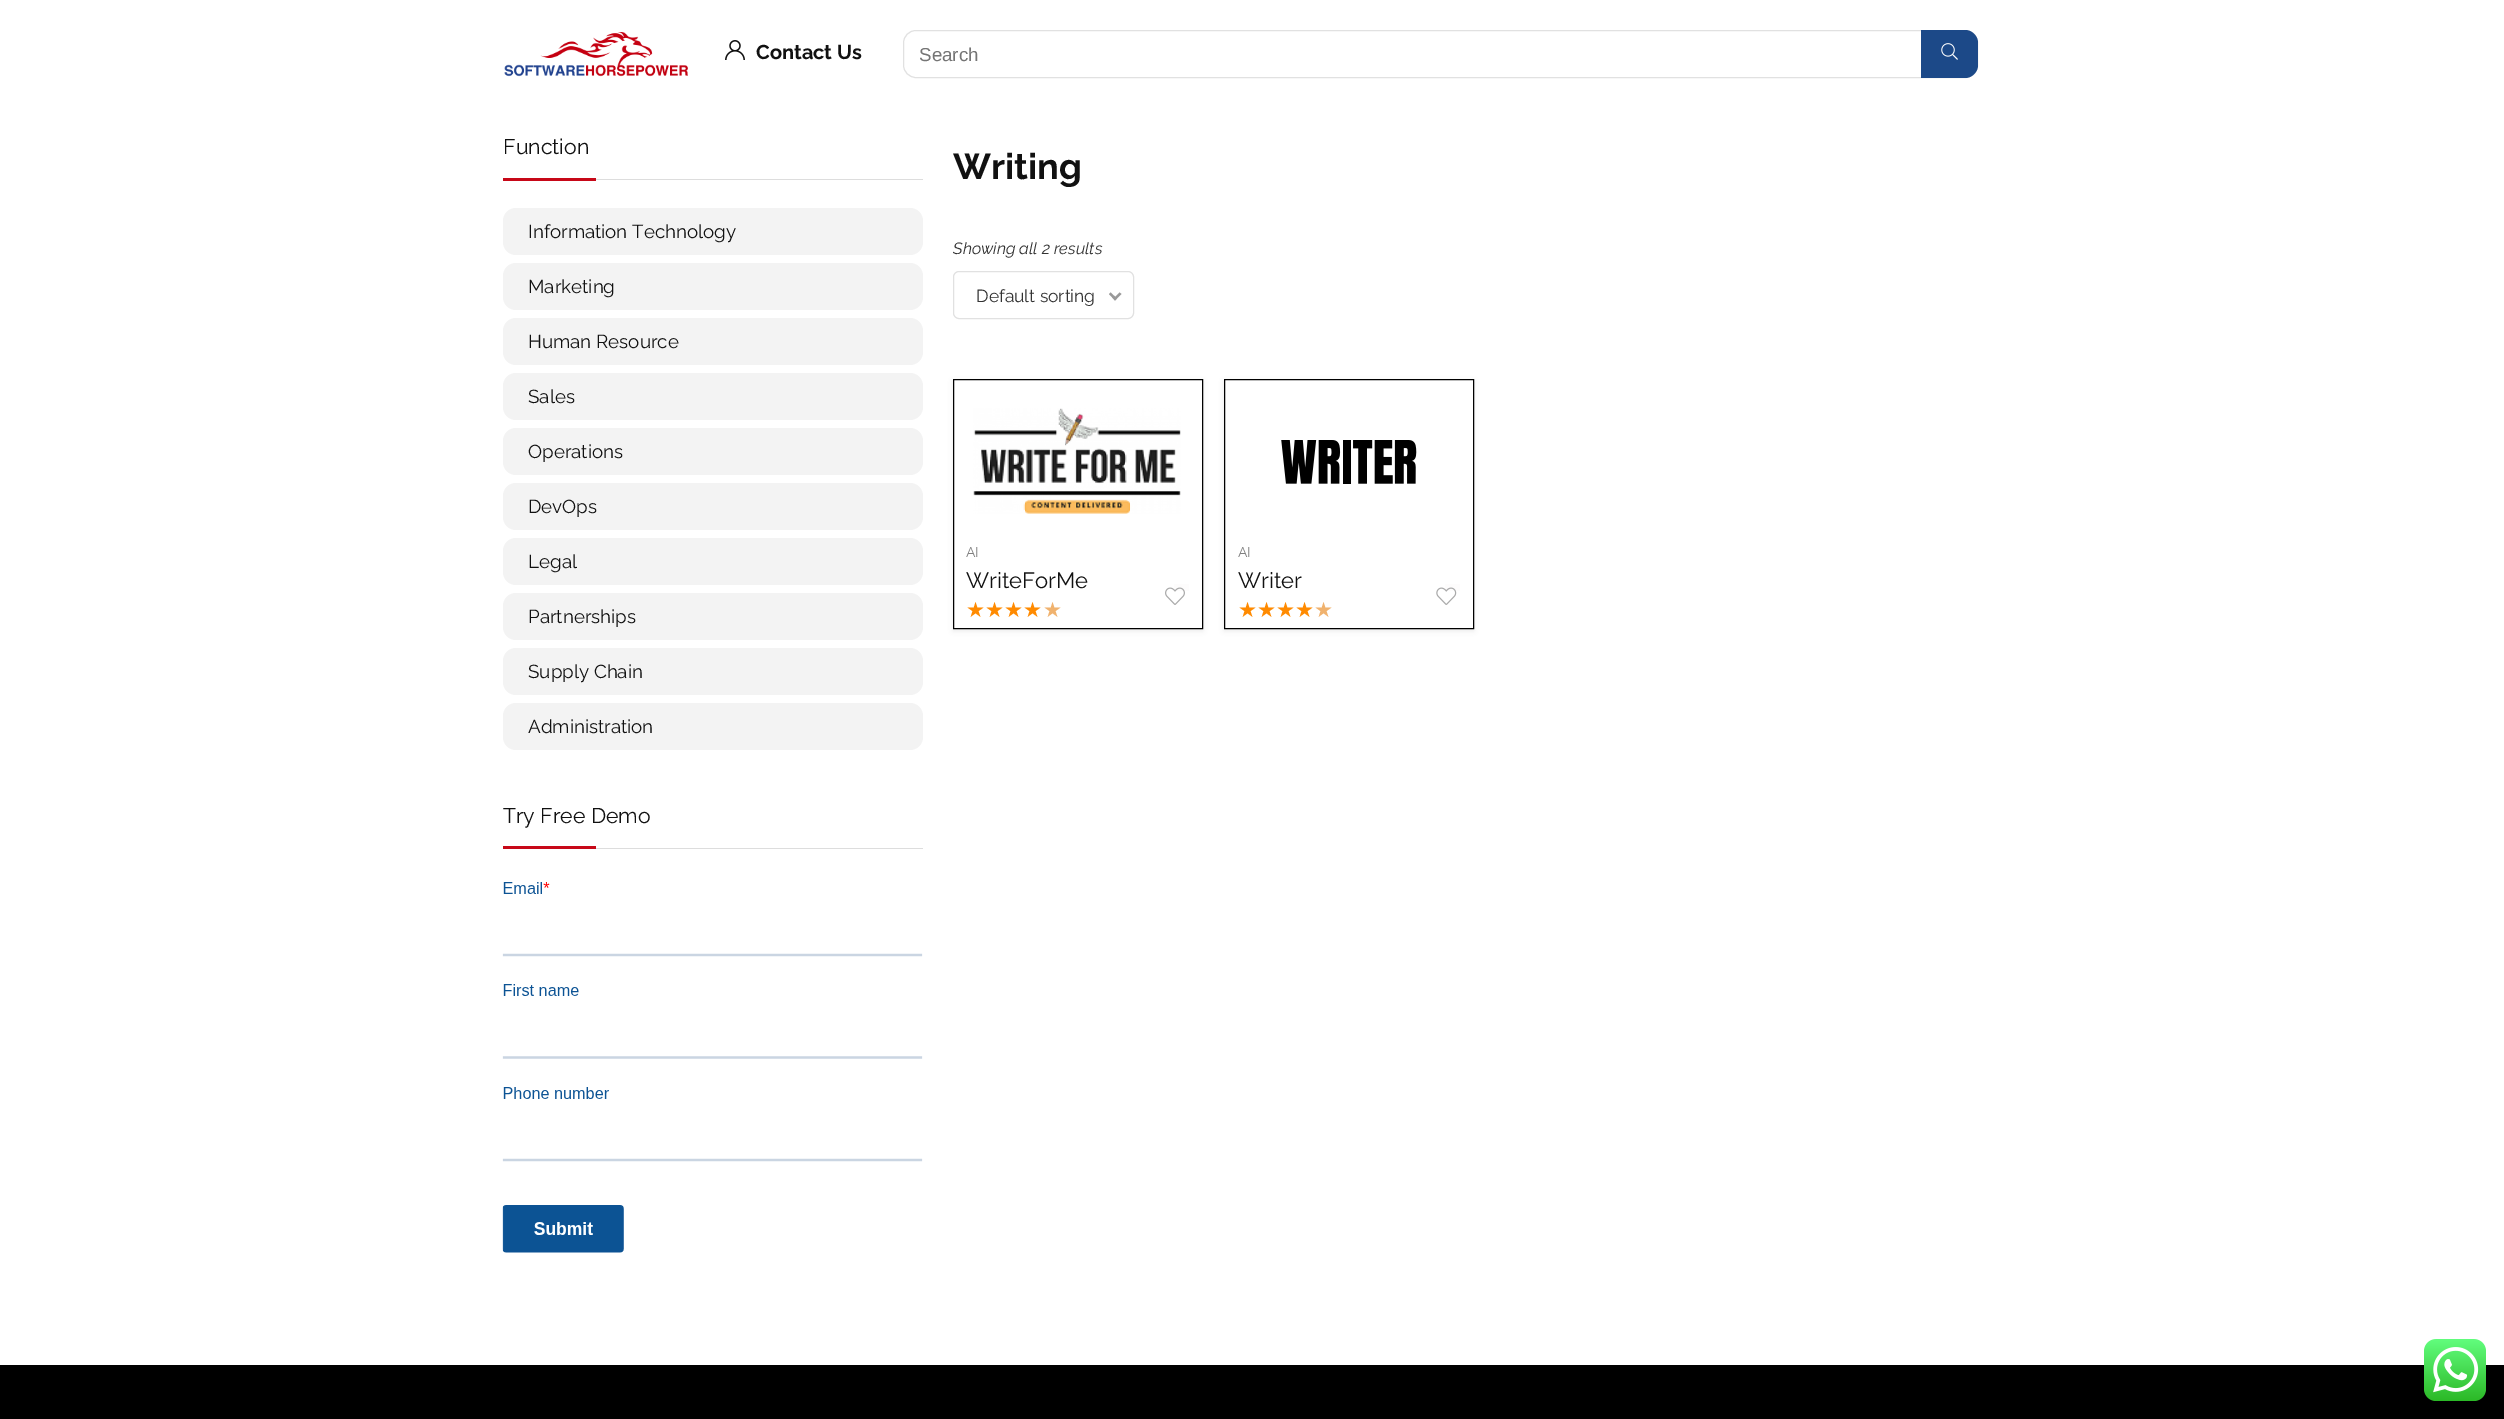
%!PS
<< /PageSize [2504 1419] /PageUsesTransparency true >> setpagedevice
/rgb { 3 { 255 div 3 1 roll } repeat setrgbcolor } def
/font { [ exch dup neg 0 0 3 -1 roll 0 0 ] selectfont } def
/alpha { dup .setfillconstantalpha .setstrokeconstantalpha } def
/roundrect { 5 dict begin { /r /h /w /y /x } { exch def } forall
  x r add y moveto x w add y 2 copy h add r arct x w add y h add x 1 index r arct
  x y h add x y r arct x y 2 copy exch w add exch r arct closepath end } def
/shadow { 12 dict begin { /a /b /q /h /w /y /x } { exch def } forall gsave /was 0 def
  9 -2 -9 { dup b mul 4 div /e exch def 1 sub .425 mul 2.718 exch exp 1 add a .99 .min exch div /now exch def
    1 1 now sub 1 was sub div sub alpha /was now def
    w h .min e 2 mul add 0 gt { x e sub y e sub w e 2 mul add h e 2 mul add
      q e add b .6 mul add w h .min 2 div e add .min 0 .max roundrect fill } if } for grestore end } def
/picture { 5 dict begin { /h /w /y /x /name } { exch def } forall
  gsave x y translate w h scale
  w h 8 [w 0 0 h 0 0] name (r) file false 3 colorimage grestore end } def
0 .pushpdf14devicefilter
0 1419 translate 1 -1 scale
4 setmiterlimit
255 255 255 rgb
0 0 2504 1419 rectfill
(img/1.rgb) 504 32 184 45 picture
(img/2.rgb) 725 40 20 20 picture
225 225 225 rgb
903.5 30.5 1074 47 12.5 roundrect stroke
28 73 136 rgb
1921 30 moveto 1965 30 lineto 1972 30 1978 36 1978 43 curveto 1978 65 lineto 1978 72 1972 78 1965 78 curveto 1921 78 lineto closepath fill
(img/3.rgb) 1941 43 17 17 picture
221 221 221 rgb
596 179 327 1 rectfill
199 8 24 rgb
503 178 93 3 rectfill
243 243 243 rgb
503 208 420 47 13 roundrect fill
503 263 420 47 13 roundrect fill
503 318 420 47 13 roundrect fill
503 373 420 47 13 roundrect fill
503 428 420 47 13 roundrect fill
503 483 420 47 13 roundrect fill
503 538 420 47 13 roundrect fill
503 593 420 47 13 roundrect fill
503 648 420 47 13 roundrect fill
503 703 420 47 13 roundrect fill
221 221 221 rgb
596 848 327 1 rectfill
199 8 24 rgb
503 846 93 3 rectfill
(img/4.rgb) 502 882 421 371 picture
225 225 225 rgb
953.5 271.5 180 47 5.5 roundrect stroke
153 153 153 rgb
1119.5 292.5 moveto 1121.5 294 lineto 1115 300.5 lineto 1113.5 298.5 lineto closepath fill
1110.5 292.5 moveto 1117 298.5 lineto 1115 300.5 lineto 1109 294 lineto closepath fill
0 0 0 rgb
953 381 250 250 0 2.5 0.07 shadow
255 255 255 rgb
953.5 379.5 moveto 1202.5 379.5 lineto 1202.5 628.5 lineto 953.5 628.5 lineto closepath gsave fill grestore
0 0 0 rgb
stroke
(img/5.rgb) 973 408 208 106 picture
244 242 243 rgb
1174 584 15 7 rectfill
0.78 alpha
255 255 255 rgb
1155 580 40 35 17.5 roundrect fill
1 alpha
(img/6.rgb) 1165 587 20 18 picture
0 0 0 rgb
1224 381 250 250 0 2.5 0.07 shadow
255 255 255 rgb
1224.5 379.5 moveto 1473.5 379.5 lineto 1473.5 628.5 lineto 1224.5 628.5 lineto closepath gsave fill grestore
0 0 0 rgb
stroke
(img/7.rgb) 1281 440 136 44 picture
244 242 243 rgb
1445 584 15 7 rectfill
0.78 alpha
255 255 255 rgb
1426 580 40 35 17.5 roundrect fill
1 alpha
(img/8.rgb) 1436 587 21 18 picture
0 0 0 rgb
0 1365 2504 54 rectfill
(img/9.rgb) 2424 1339 62 62 picture
/Raleway-Bold 20 font
17 17 17 rgb
756 59 moveto (Contact Us) show
/LiberationSans-Regular 18.75 font
117 117 117 rgb
919 61 moveto (Search) show
/Raleway-Regular 21.25 font
17 17 17 rgb
503 154 moveto (Function) show
/Raleway-Regular 18.75 font
[
  [(Information Technology) 528 238]
  [(Marketing) 528 293]
  [(Human Resource) 528 348]
  [(Sales) 528 403]
  [(Operations) 528 458]
  [(DevOps) 528 513]
  [(Legal) 528 568]
  [(Partnerships) 528 623]
  [(Supply Chain) 528 678]
  [(Administration) 528 733]
] { aload pop moveto show } forall
/Raleway-Regular 21.25 font
503 823 moveto (Try Free Demo) show
/Raleway-Bold 36 font
953 179 moveto (Writing) show
/Raleway-Italic 16.25 font
51 51 51 rgb
953 254 moveto (Showing all 2 results) show
/Raleway-Regular 17.5 font
976 302 moveto (Default sorting) show
/Raleway-Regular 14 font
128 128 128 rgb
966 557 moveto (AI) show
/Raleway-Regular 22 font
17 17 17 rgb
966 588 moveto (WriteForMe) show
/DejaVuSans-Regular 21.25 font
255 138 0 rgb
966 617 moveto (★★★★) show
240 178 110 rgb
1043 617 moveto (★) show
/Raleway-Regular 14 font
128 128 128 rgb
1238 557 moveto (AI) show
/Raleway-Regular 22 font
17 17 17 rgb
1238 588 moveto (Writer) show
/DejaVuSans-Regular 21.25 font
255 138 0 rgb
1238 617 moveto (★★★★) show
240 178 110 rgb
1314 617 moveto (★) show
.poppdf14devicefilter showpage
